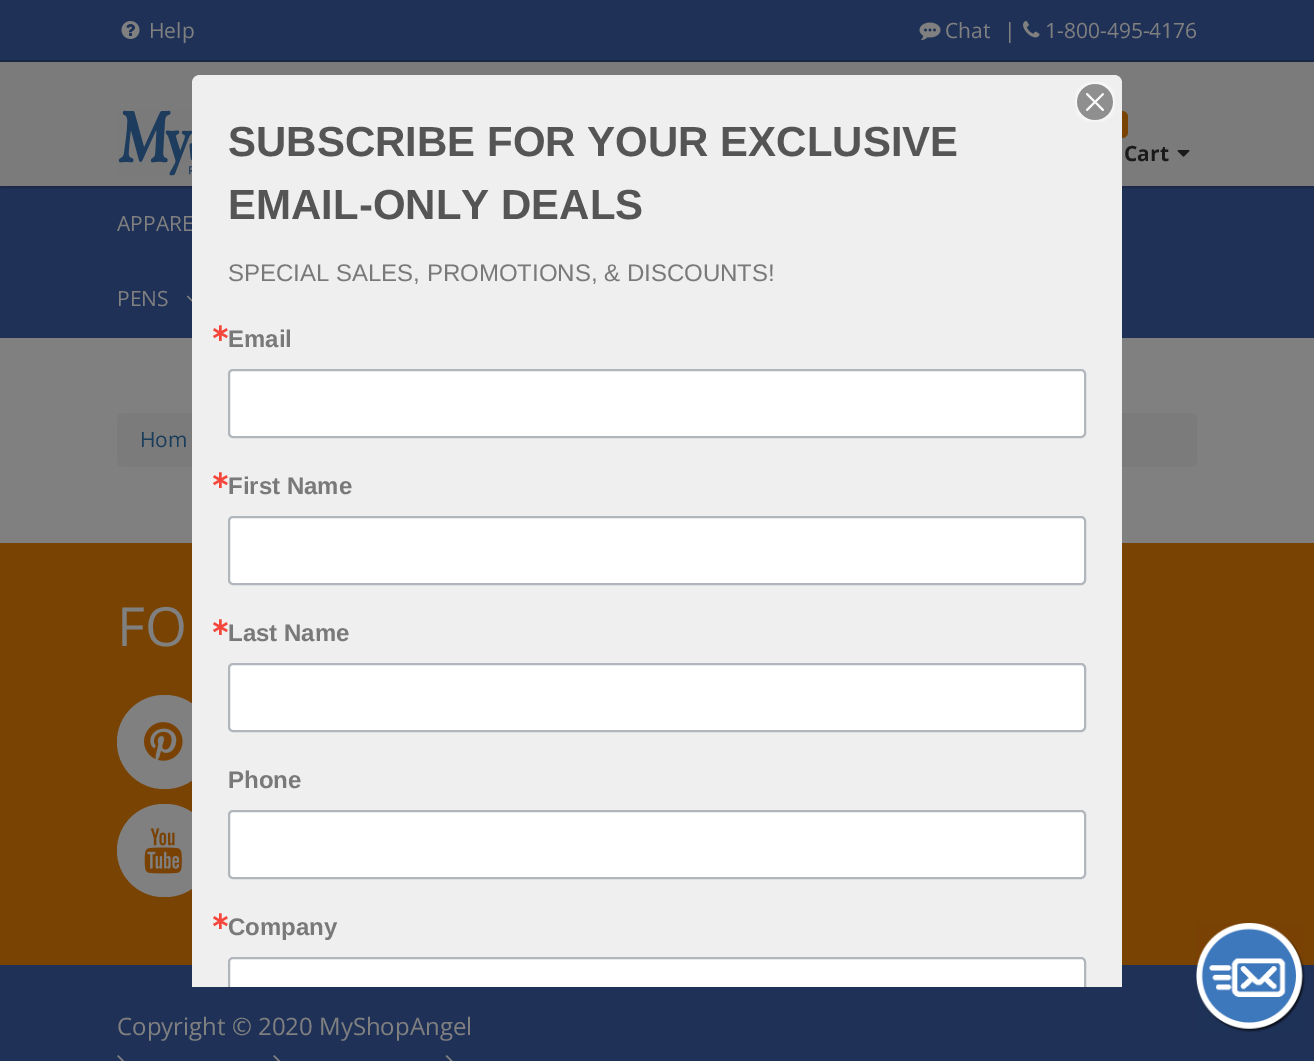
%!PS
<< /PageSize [1314 1061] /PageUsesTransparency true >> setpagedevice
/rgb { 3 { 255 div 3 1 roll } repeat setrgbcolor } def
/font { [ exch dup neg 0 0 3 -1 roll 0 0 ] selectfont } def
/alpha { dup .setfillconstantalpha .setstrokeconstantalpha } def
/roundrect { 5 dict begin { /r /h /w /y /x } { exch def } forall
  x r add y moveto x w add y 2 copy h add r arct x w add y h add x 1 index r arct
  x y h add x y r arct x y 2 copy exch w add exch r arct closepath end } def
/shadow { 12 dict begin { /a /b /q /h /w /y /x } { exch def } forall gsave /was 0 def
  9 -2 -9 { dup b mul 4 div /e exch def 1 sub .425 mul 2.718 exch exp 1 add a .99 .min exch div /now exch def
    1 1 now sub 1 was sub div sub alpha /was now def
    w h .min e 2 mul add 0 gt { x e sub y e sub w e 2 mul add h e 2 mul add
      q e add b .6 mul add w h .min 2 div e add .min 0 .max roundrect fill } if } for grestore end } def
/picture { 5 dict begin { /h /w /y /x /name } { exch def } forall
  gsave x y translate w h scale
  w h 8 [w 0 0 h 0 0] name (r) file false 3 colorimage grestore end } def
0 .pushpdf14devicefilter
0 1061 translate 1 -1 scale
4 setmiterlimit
128 128 128 rgb
0 0 1314 1061 rectfill
31 49 87 rgb
0 0 1314 60 rectfill
24 39 68 rgb
0 60 1314 2 rectfill
(img/1.rgb) 121 21 19 18 picture
(img/2.rgb) 919 22 22 19 picture
(img/3.rgb) 1023 21 17 17 picture
31 49 87 rgb
0 186 1314 152 rectfill
0 0 0 rgb
0 63 1314 125 0 1 0.2 shadow
123 123 123 rgb
0 62 1314 124 rectfill
(img/4.rgb) 118 110 74 66 picture
121 67 4 rgb
1097 111 31 27 6 roundrect fill
(img/5.rgb) 1177 150 13 7 picture
(img/6.rgb) 186 295 6 7 picture
123 123 123 rgb
117 413 1080 54 6 roundrect fill
121 67 4 rgb
0 543 1314 422 rectfill
128 128 128 rgb
117 695 95 94 47 roundrect fill
(img/7.rgb) 144 722 39 39 picture
117 804 95 93 46.5 roundrect fill
(img/8.rgb) 144 828 38 46 picture
31 49 87 rgb
0 965 1314 96 rectfill
(img/9.rgb) 117 1055 8 6 picture
(img/9.rgb) 273 1055 8 6 picture
(img/10.rgb) 445 1055 8 6 picture
(img/12.rgb) 1196 923 109 109 picture
/OpenSans-Regular 21 font
128 128 128 rgb
[
  [(Help) 149 38]
  [(Chat) 945 38]
  [(|) 1004 38]
  [(1-800-495-4176) 1045 38]
] { aload pop moveto show } forall
/OpenSans-Bold 21 font
26 26 26 rgb
1124 161 moveto (Cart) show
/OpenSans-Regular 21 font
128 128 128 rgb
117 231 moveto (APPARE) show
117 306 moveto (PENS) show
26 61 92 rgb
140 447 moveto (Hom) show
/OpenSans-Regular 54 font
128 128 128 rgb
117 646 moveto (FO) show
/OpenSans-Regular 24 font
117 1035 moveto (Copyright © 2020 MyShopAngel) show
239 239 239 rgb
200 75 moveto 1114 75 lineto 1118.5 75 1122 78.5 1122 83 curveto 1122 987 lineto 192 987 lineto 192 83 lineto 192 78.5 195.5 75 200 75 curveto closepath fill
(img/11.rgb) 1075 82 40 40 picture
/LiberationSans-Bold 42 font
85 85 85 rgb
228 156 moveto (SUBSCRIBE FOR YOUR EXCLUSIVE) show
228 219 moveto (EMAIL-ONLY DEALS) show
/LiberationSans-Regular 24 font
121 121 121 rgb
228 281 moveto (SPECIAL SALES, PROMOTIONS, & DISCOUNTS!) show
/DejaVuSans-Bold 24 font
245 70 59 rgb
210 341 moveto (∗) show
/LiberationSans-Bold 24 font
121 121 121 rgb
228 347 moveto (Email) show
255 255 255 rgb
229 370 856 67 4 roundrect gsave fill grestore
176 182 187 rgb
2 setlinewidth
stroke
/DejaVuSans-Bold 24 font
245 70 59 rgb
210 488 moveto (∗) show
/LiberationSans-Bold 24 font
121 121 121 rgb
228 494 moveto (First Name) show
255 255 255 rgb
229 517 856 67 4 roundrect gsave fill grestore
176 182 187 rgb
stroke
/DejaVuSans-Bold 24 font
245 70 59 rgb
210 635 moveto (∗) show
/LiberationSans-Bold 24 font
121 121 121 rgb
228 641 moveto (Last Name) show
255 255 255 rgb
229 664 856 67 4 roundrect gsave fill grestore
176 182 187 rgb
stroke
121 121 121 rgb
228 788 moveto (Phone) show
255 255 255 rgb
229 811 856 67 4 roundrect gsave fill grestore
176 182 187 rgb
stroke
/DejaVuSans-Bold 24 font
245 70 59 rgb
210 929 moveto (∗) show
/LiberationSans-Bold 24 font
121 121 121 rgb
228 935 moveto (Company) show
255 255 255 rgb
233 957 moveto 1081 957 lineto 1084 957 1086 959 1086 962 curveto 1086 987 lineto 228 987 lineto 228 962 lineto 228 959 230 957 233 957 curveto closepath fill
gsave
192 75 930 912 rectclip
176 182 187 rgb
229 958 856 67 4 roundrect stroke
grestore
.poppdf14devicefilter showpage
